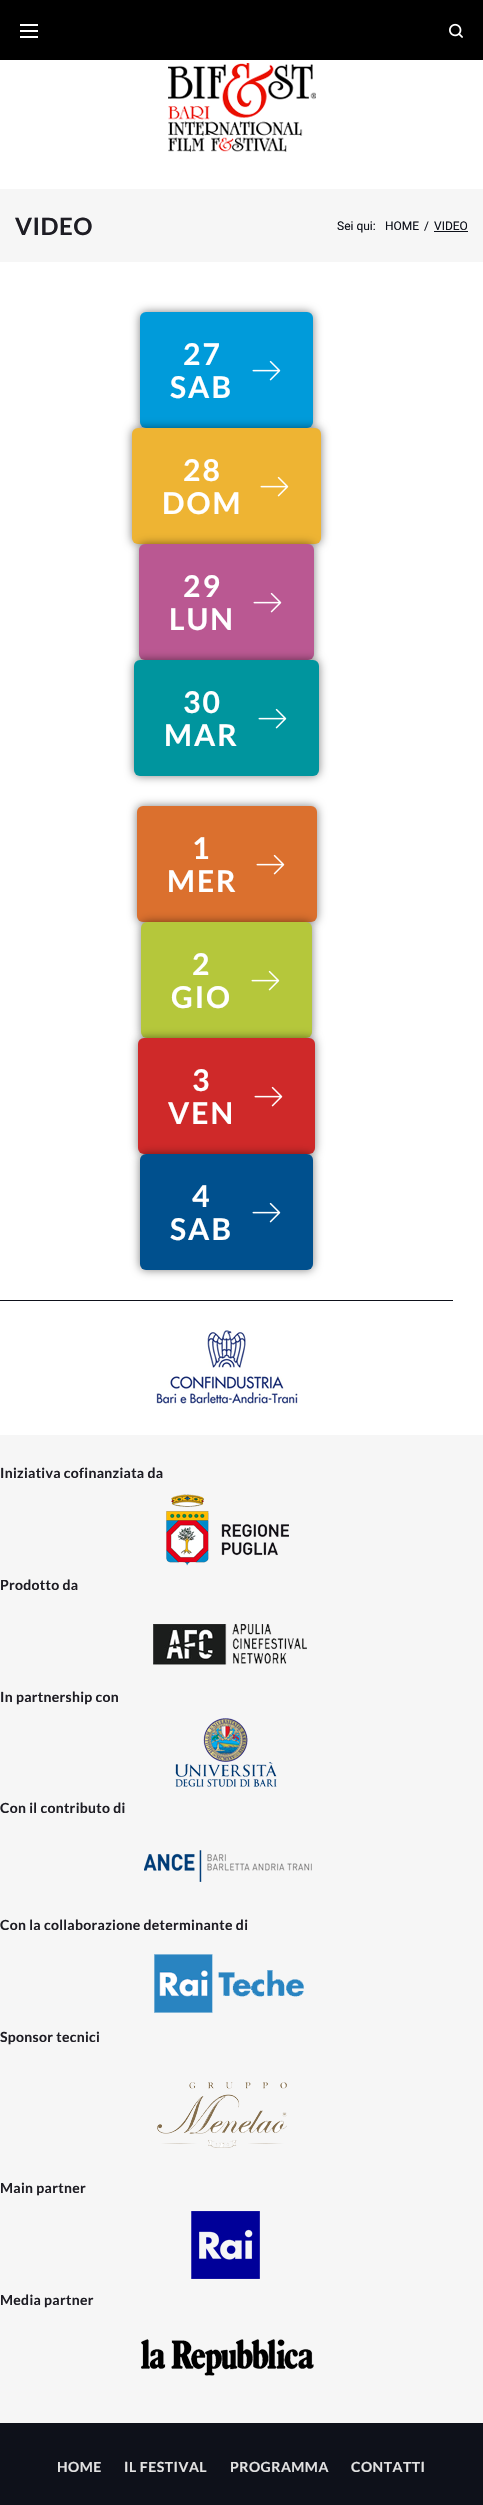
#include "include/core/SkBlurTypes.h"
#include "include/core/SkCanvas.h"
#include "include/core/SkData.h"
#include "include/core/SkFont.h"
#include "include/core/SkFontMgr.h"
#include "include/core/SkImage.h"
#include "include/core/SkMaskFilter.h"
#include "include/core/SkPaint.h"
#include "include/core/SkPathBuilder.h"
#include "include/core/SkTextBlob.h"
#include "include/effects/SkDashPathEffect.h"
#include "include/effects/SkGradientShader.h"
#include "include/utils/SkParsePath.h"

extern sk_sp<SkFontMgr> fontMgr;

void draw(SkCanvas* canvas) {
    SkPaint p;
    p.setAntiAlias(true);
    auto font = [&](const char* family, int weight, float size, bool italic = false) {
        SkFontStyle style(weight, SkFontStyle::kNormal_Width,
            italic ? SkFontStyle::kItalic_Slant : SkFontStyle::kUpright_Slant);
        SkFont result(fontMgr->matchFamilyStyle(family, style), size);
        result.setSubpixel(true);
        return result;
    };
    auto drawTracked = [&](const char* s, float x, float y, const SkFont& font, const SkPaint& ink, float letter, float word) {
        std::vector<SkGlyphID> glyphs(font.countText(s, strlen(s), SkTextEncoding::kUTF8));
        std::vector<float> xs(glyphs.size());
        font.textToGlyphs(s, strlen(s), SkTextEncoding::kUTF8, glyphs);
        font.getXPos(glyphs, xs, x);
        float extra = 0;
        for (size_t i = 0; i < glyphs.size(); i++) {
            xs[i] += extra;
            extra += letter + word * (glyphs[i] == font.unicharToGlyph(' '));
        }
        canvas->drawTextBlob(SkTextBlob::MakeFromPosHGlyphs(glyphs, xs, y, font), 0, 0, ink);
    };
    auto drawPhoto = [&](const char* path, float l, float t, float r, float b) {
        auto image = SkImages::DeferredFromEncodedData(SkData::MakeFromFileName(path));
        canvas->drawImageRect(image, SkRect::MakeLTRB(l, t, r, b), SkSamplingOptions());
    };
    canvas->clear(0xFFFFFFFF);
    {
        const struct { float l, t, r, b; SkColor color; } items[] = {
            {0, 0, 483, 60, 0xFF000000},
            {20, 30, 38, 32, 0xFFFFFFFF},
            {20, 24, 38, 26, 0xFFFFFFFF},
            {20, 36, 38, 38, 0xFFFFFFFF},
        };
        for (auto [l, t, r, b, color] : items) {
            p.setColor(color);
            canvas->drawRect(SkRect::MakeLTRB(l, t, r, b), p);
        }
    }
    drawPhoto("media/1.png", 449, 23, 463, 38);
    drawPhoto("media/2.png", 168, 63, 316, 152);
    p.setColor(0xFFF6F6F6);
    canvas->drawRect(SkRect::MakeLTRB(0, 189, 483, 262), p);
    auto font1 = font("Lato", 700, 24);
    p.setColor(0xFF1E1D24);
    drawTracked("VIDEO", 15, 235, font1, p, 0.5f, 0);
    auto font2 = font("Roboto", 400, 12);
    p.setColor(0xFF0E111A);
    {
        const struct { const char* s; float x, y; } items[] = {
            {"Sei qui:", 337, 230},
            {"HOME", 385, 230},
            {"/", 424, 230},
            {"VIDEO", 434, 230},
        };
        for (auto [s, x, y] : items) {
            canvas->drawString(s, x, y, font2, p);
        }
    }
    canvas->drawRect(SkRect::MakeLTRB(434, 231, 468, 232), p);
    p.setColor(0x80000000);
    p.setMaskFilter(SkMaskFilter::MakeBlur(kNormal_SkBlurStyle, 5));
    canvas->drawRoundRect(SkRect::MakeLTRB(140, 312, 313, 428), 6, 6, p);
    p.setMaskFilter(nullptr);
    p.setColor(0xFF009BDA);
    canvas->drawRoundRect(SkRect::MakeLTRB(140, 312, 313, 428), 6, 6, p);
    auto font3 = font("Lato", 700, 30);
    p.setColor(0xFFFFFFFF);
    drawTracked("27", 183, 365, font3, p, 2, 0);
    drawTracked("SAB", 170, 398, font3, p, 2, 0);
    drawPhoto("media/3.png", 252, 360, 281, 381);
    p.setColor(0x80000000);
    p.setMaskFilter(SkMaskFilter::MakeBlur(kNormal_SkBlurStyle, 5));
    canvas->drawRoundRect(SkRect::MakeLTRB(132, 428, 321, 544), 6, 6, p);
    p.setMaskFilter(nullptr);
    p.setColor(0xFFEEB433);
    canvas->drawRoundRect(SkRect::MakeLTRB(132, 428, 321, 544), 6, 6, p);
    p.setColor(0xFFFFFFFF);
    drawTracked("28", 183, 481, font3, p, 2, 0);
    drawTracked("DOM", 162, 514, font3, p, 2, 0);
    drawPhoto("media/4.png", 260, 476, 289, 497);
    p.setColor(0x80000000);
    p.setMaskFilter(SkMaskFilter::MakeBlur(kNormal_SkBlurStyle, 5));
    canvas->drawRoundRect(SkRect::MakeLTRB(139, 544, 314, 660), 6, 6, p);
    p.setMaskFilter(nullptr);
    p.setColor(0xFFBA5892);
    canvas->drawRoundRect(SkRect::MakeLTRB(139, 544, 314, 660), 6, 6, p);
    p.setColor(0xFFFFFFFF);
    drawTracked("29", 183, 597, font3, p, 2, 0);
    drawTracked("LUN", 169, 630, font3, p, 2, 0);
    drawPhoto("media/5.png", 253, 592, 282, 613);
    p.setColor(0x80000000);
    p.setMaskFilter(SkMaskFilter::MakeBlur(kNormal_SkBlurStyle, 5));
    canvas->drawRoundRect(SkRect::MakeLTRB(134, 660, 319, 776), 6, 6, p);
    p.setMaskFilter(nullptr);
    p.setColor(0xFF00959E);
    canvas->drawRoundRect(SkRect::MakeLTRB(134, 660, 319, 776), 6, 6, p);
    p.setColor(0xFFFFFFFF);
    drawTracked("30", 183, 713, font3, p, 2, 0);
    drawTracked("MAR", 164, 746, font3, p, 2, 0);
    drawPhoto("media/6.png", 258, 708, 287, 729);
    p.setColor(0x80000000);
    p.setMaskFilter(SkMaskFilter::MakeBlur(kNormal_SkBlurStyle, 5));
    canvas->drawRoundRect(SkRect::MakeLTRB(137, 806, 317, 922), 6, 6, p);
    p.setMaskFilter(nullptr);
    p.setColor(0xFFDB702E);
    canvas->drawRoundRect(SkRect::MakeLTRB(137, 806, 317, 922), 6, 6, p);
    p.setColor(0xFFFFFFFF);
    drawTracked("1", 192, 859, font3, p, 2, 0);
    drawTracked("MER", 167, 892, font3, p, 2, 0);
    drawPhoto("media/7.png", 256, 854, 285, 875);
    p.setColor(0x80000000);
    p.setMaskFilter(SkMaskFilter::MakeBlur(kNormal_SkBlurStyle, 5));
    canvas->drawRoundRect(SkRect::MakeLTRB(141, 922, 312, 1038), 6, 6, p);
    p.setMaskFilter(nullptr);
    p.setColor(0xFFB5C73B);
    canvas->drawRoundRect(SkRect::MakeLTRB(141, 922, 312, 1038), 6, 6, p);
    p.setColor(0xFFFFFFFF);
    drawTracked("2", 192, 975, font3, p, 2, 0);
    drawTracked("GIO", 171, 1008, font3, p, 2, 0);
    drawPhoto("media/8.png", 251, 970, 280, 991);
    p.setColor(0x80000000);
    p.setMaskFilter(SkMaskFilter::MakeBlur(kNormal_SkBlurStyle, 5));
    canvas->drawRoundRect(SkRect::MakeLTRB(138, 1038, 315, 1154), 6, 6, p);
    p.setMaskFilter(nullptr);
    p.setColor(0xFFCF2929);
    canvas->drawRoundRect(SkRect::MakeLTRB(138, 1038, 315, 1154), 6, 6, p);
    p.setColor(0xFFFFFFFF);
    drawTracked("3", 192, 1091, font3, p, 2, 0);
    drawTracked("VEN", 168, 1124, font3, p, 2, 0);
    drawPhoto("media/9.png", 254, 1086, 283, 1107);
    p.setColor(0x80000000);
    p.setMaskFilter(SkMaskFilter::MakeBlur(kNormal_SkBlurStyle, 5));
    canvas->drawRoundRect(SkRect::MakeLTRB(140, 1154, 313, 1270), 6, 6, p);
    p.setMaskFilter(nullptr);
    p.setColor(0xFF00508E);
    canvas->drawRoundRect(SkRect::MakeLTRB(140, 1154, 313, 1270), 6, 6, p);
    p.setColor(0xFFFFFFFF);
    drawTracked("4", 192, 1207, font3, p, 2, 0);
    drawTracked("SAB", 170, 1240, font3, p, 2, 0);
    drawPhoto("media/10.png", 252, 1202, 281, 1223);
    {
        const struct { float l, t, r, b; SkColor color; } items[] = {
            {0, 2423, 483, 2505, 0xFF0E111A},
            {0, 1435, 483, 2423, 0xFFF6F6F6},
            {0, 1300, 453, 1301, 0xFF0E111A},
        };
        for (auto [l, t, r, b, color] : items) {
            p.setColor(color);
            canvas->drawRect(SkRect::MakeLTRB(l, t, r, b), p);
        }
    }
    drawPhoto("media/11.png", 156, 1330, 298, 1406);
    auto font4 = font("Lato", 700, 14);
    p.setColor(0xFF1E1D24);
    drawTracked("Iniziativa cofinanziata da", 0, 1478, font4, p, 0.3f, 0);
    drawPhoto("media/12.png", 166, 1494, 289, 1566);
    drawTracked("Prodotto da", 0, 1590, font4, p, 0.3f, 0);
    drawPhoto("media/13.png", 153, 1624, 307, 1665);
    drawTracked("In partnership con", 0, 1702, font4, p, 0.3f, 0);
    drawPhoto("media/14.png", 175, 1718, 277, 1787);
    drawTracked("Con il contributo di", 0, 1813, font4, p, 0.3f, 0);
    drawPhoto("media/15.png", 144, 1850, 312, 1882);
    drawTracked("Con la collaborazione determinante di", 0, 1930, font4, p, 0.3f, 0);
    drawPhoto("media/16.png", 154, 1954, 304, 2013);
    drawTracked("Sponsor tecnici", 0, 2042, font4, p, 0.3f, 0);
    drawPhoto("media/17.png", 157, 2082, 287, 2148);
    drawTracked("Main partner", 0, 2193, font4, p, 0.3f, 0);
    drawPhoto("media/18.png", 191, 2211, 260, 2279);
    drawTracked("Media partner", 0, 2305, font4, p, 0.3f, 0);
    drawPhoto("media/19.png", 141, 2339, 314, 2376);
    p.setColor(0xFFE2E2E2);
    {
        const struct { const char* s; float x, y; } items[] = {
            {"HOME", 57, 2472},
            {"IL FESTIVAL", 124, 2472},
            {"PROGRAMMA", 230, 2472},
            {"CONTATTI", 351, 2472},
        };
        for (auto [s, x, y] : items) {
            drawTracked(s, x, y, font4, p, 0.5f, 0);
        }
    }
}
